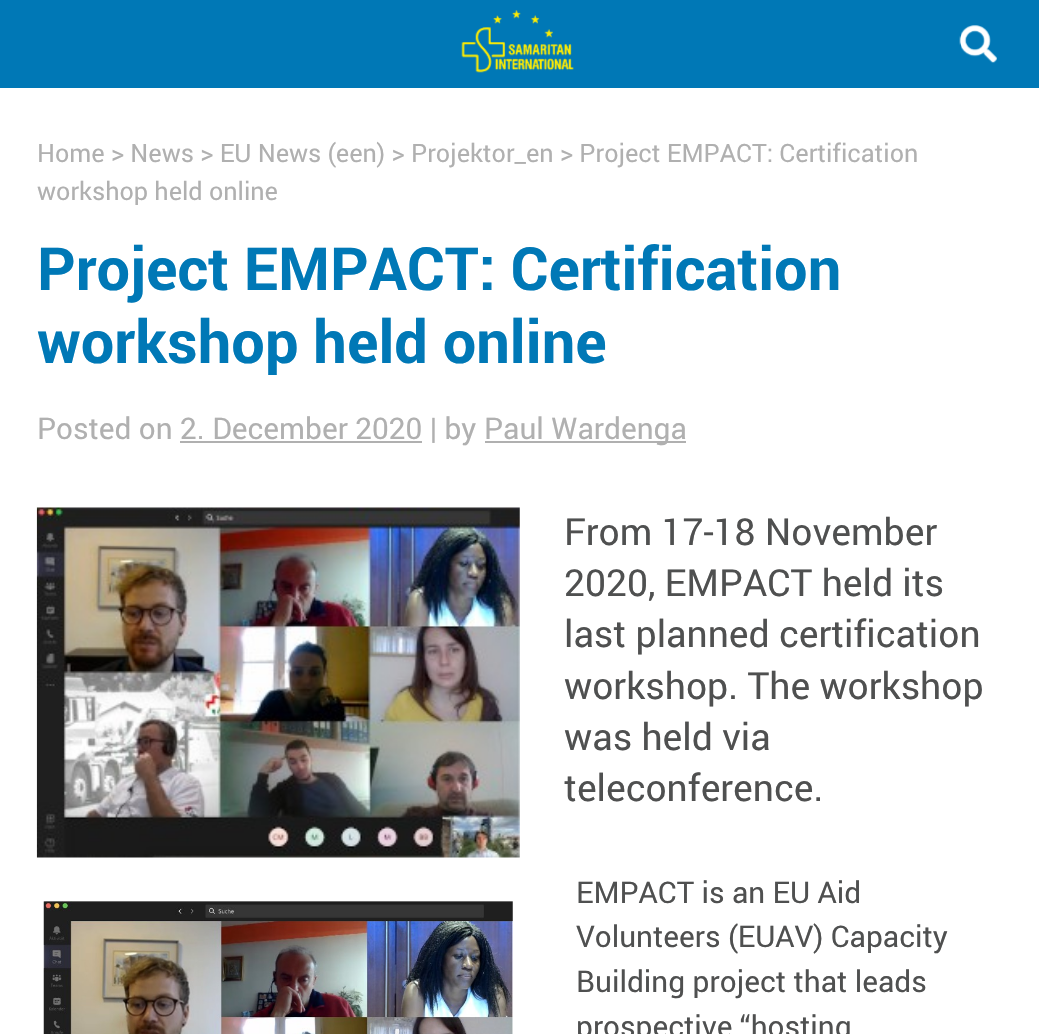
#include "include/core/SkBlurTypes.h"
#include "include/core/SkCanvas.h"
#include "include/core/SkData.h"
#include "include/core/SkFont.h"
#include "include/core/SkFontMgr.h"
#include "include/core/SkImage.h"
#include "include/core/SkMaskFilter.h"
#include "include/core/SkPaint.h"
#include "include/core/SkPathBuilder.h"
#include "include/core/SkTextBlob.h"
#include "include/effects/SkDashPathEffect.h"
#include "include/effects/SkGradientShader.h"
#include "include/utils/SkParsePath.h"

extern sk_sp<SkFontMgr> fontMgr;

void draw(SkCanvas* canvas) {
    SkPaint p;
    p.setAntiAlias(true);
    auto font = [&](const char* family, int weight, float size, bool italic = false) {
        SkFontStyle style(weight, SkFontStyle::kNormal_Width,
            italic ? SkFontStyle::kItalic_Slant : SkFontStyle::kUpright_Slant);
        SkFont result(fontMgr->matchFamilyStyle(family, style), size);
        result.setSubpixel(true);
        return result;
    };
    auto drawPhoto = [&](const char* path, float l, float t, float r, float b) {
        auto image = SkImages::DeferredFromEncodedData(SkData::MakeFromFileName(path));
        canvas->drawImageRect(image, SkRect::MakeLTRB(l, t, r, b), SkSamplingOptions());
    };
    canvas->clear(0xFFFFFFFF);
    p.setColor(0xFF0078B6);
    canvas->drawRect(SkRect::MakeLTRB(0, 0, 1039, 88), p);
    drawPhoto("media/1.png", 959, 25, 997, 63);
    drawPhoto("media/2.png", 461, 10, 574, 73);
    auto font1 = font("Roboto", 400, 25.2f);
    p.setColor(0xFFB0B0B0);
    canvas->drawString("Home > News > EU News (een) > Projektor_en > Project EMPACT: Certification", 37, 162, font1, p);
    canvas->drawString("workshop held online", 37, 200, font1, p);
    auto font2 = font("Roboto", 700, 59.5f);
    p.setColor(0xFF0078B6);
    canvas->drawString("Project EMPACT: Certification", 37, 290, font2, p);
    canvas->drawString("workshop held online", 37, 363, font2, p);
    auto font3 = font("Roboto", 400, 29.75f);
    p.setColor(0xFFB0B0B0);
    canvas->drawString("Posted on 2. December 2020 | by", 37, 439, font3, p);
    canvas->drawRect(SkRect::MakeLTRB(180, 441, 422, 443), p);
    canvas->drawRect(SkRect::MakeLTRB(485, 441, 686, 443), p);
    canvas->drawString("Paul Wardenga", 484, 439, font3, p);
    drawPhoto("media/3.png", 36, 507, 520, 858);
    auto font4 = font("Roboto", 400, 37.25f);
    p.setColor(0xFF4F5050);
    {
        const struct { const char* s; float x, y; } items[] = {
            {"From 17-18 November", 564, 545},
            {"2020, EMPACT held its", 564, 596},
            {"last planned certification", 564, 647},
            {"workshop. The workshop", 564, 699},
            {"was held via", 564, 750},
            {"teleconference.", 564, 801},
        };
        for (auto [s, x, y] : items) {
            canvas->drawString(s, x, y, font4, p);
        }
    }
    drawPhoto("media/4.png", 43, 901, 513, 1034);
    {
        const struct { const char* s; float x, y; } items[] = {
            {"EMPACT is an EU Aid", 576, 903},
            {"Volunteers (EUAV) Capacity", 576, 947},
            {"Building project that leads", 576, 992},
            {"prospective “hosting", 576, 1037},
        };
        for (auto [s, x, y] : items) {
            canvas->drawString(s, x, y, font3, p);
        }
    }
}
